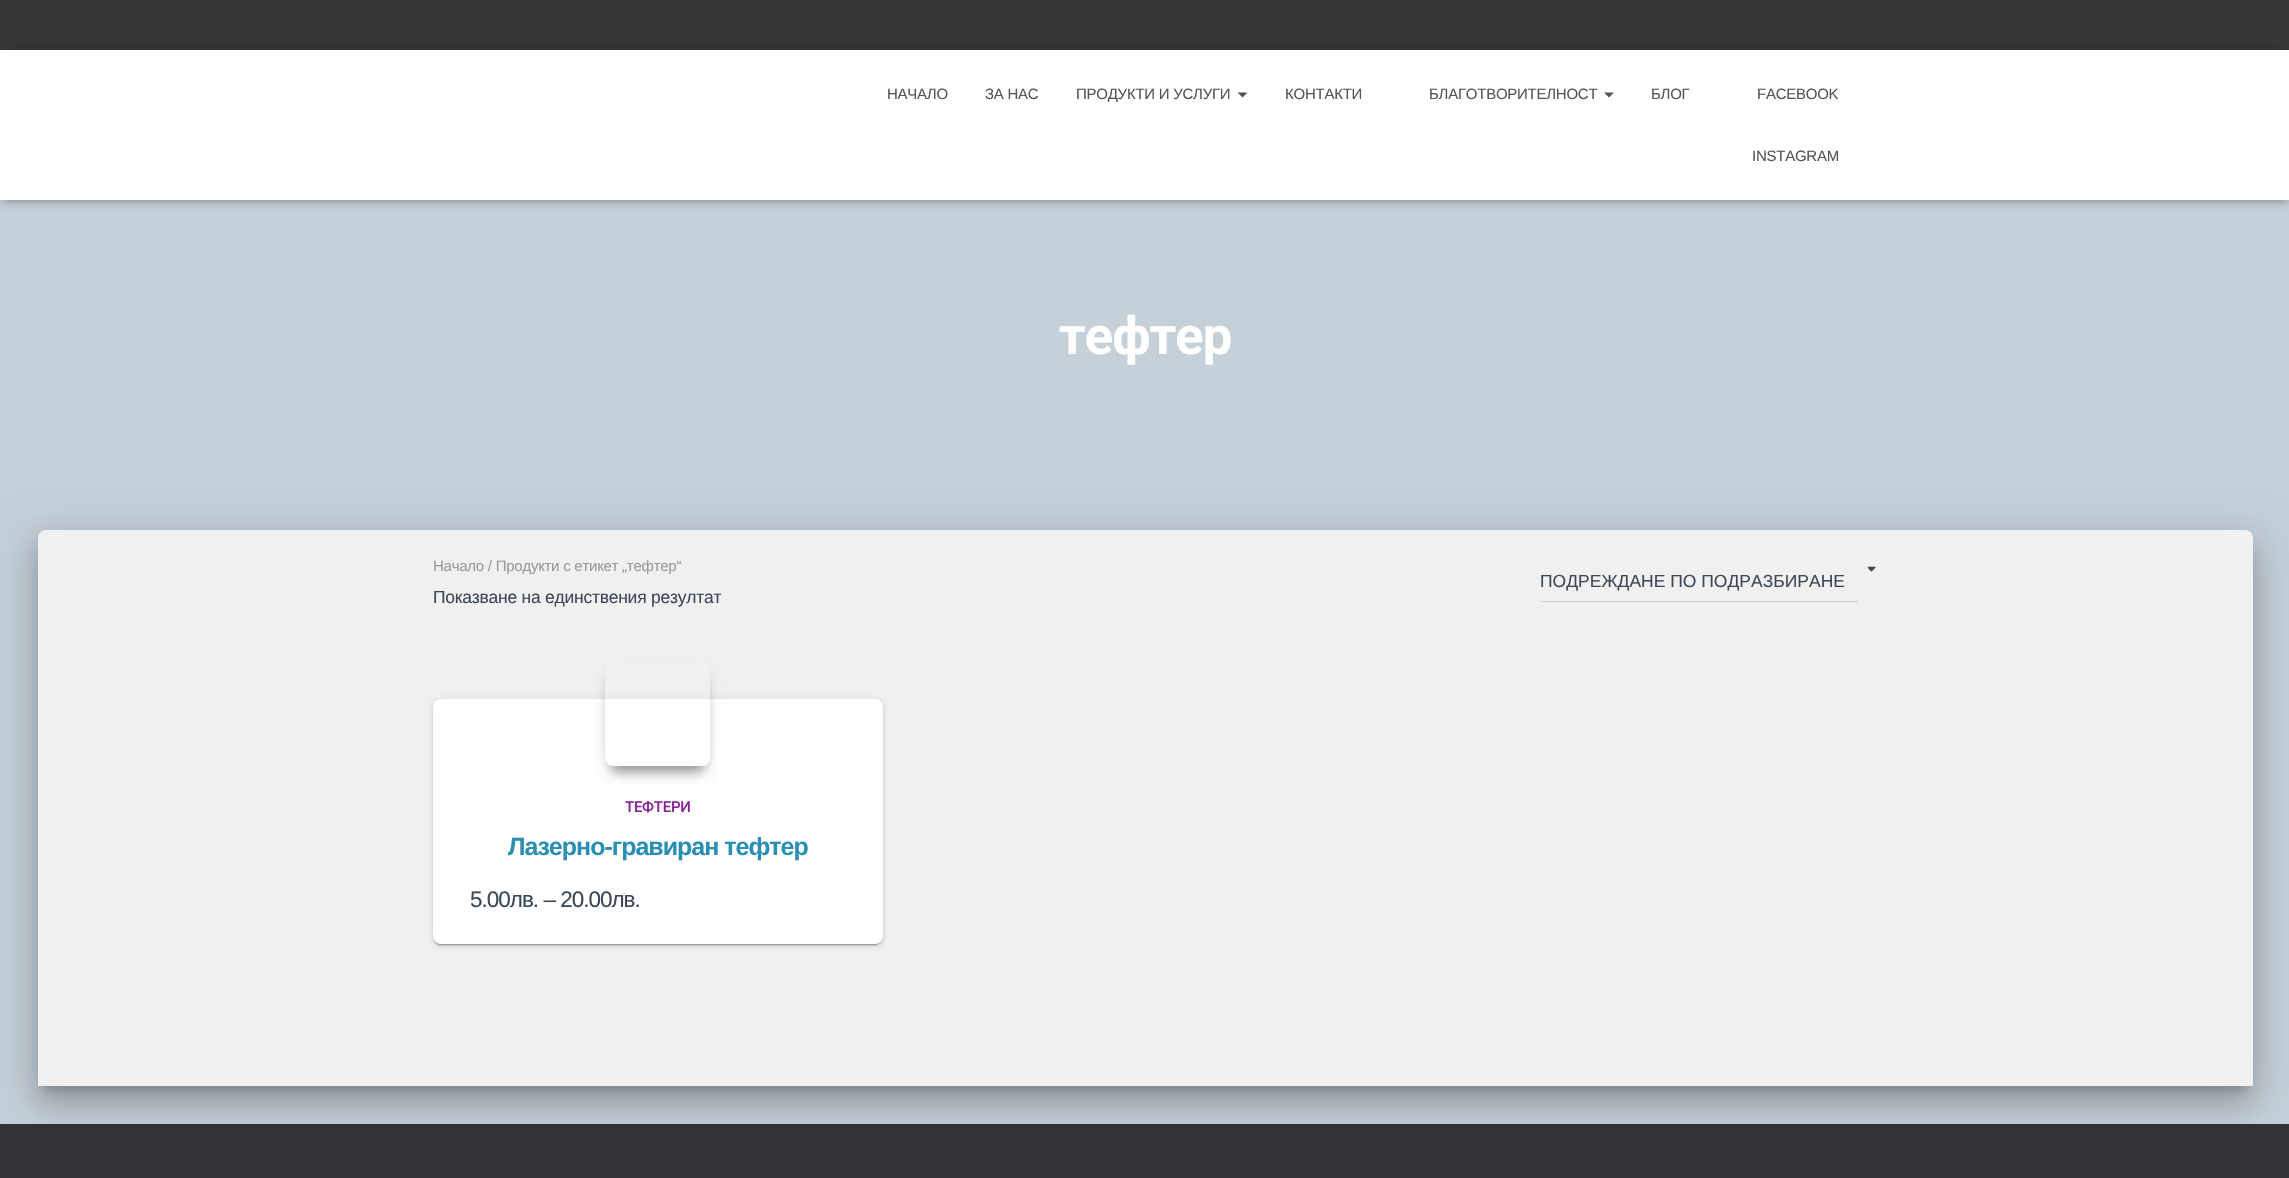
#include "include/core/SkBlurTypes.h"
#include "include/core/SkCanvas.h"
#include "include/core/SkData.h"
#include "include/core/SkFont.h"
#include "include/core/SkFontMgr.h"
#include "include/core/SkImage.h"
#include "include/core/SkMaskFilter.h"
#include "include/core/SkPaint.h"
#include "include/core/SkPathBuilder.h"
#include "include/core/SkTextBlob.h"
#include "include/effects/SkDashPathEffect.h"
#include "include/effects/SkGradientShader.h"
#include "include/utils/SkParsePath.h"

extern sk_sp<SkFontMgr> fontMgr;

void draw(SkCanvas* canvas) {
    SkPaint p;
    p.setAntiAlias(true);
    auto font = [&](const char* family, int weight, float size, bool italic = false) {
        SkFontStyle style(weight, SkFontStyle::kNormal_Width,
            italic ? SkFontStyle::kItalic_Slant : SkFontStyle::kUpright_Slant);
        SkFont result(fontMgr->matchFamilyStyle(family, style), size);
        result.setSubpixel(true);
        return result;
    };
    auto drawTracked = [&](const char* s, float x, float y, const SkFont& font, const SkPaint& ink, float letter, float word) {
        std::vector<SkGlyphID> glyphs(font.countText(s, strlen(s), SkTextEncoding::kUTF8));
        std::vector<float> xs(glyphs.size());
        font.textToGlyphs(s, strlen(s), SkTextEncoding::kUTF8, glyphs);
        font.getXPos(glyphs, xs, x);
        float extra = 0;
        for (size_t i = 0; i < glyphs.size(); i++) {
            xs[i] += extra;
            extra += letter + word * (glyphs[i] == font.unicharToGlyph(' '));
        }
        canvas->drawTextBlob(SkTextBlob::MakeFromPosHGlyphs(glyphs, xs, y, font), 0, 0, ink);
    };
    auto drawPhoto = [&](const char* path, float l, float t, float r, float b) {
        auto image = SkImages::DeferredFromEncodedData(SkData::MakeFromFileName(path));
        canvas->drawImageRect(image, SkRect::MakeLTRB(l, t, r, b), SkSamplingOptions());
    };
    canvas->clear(0xFFC5D0D9);
    p.setColor(0xFF363537);
    canvas->drawRect(SkRect::MakeLTRB(0, 0, 2289, 50), p);
    p.setColor(0x1A000000);
    p.setMaskFilter(SkMaskFilter::MakeBlur(kNormal_SkBlurStyle, 3));
    canvas->drawRect(SkRect::MakeLTRB(3, 58, 2288, 203), p);
    p.setMaskFilter(nullptr);
    p.setColor(0x1F000000);
    p.setMaskFilter(SkMaskFilter::MakeBlur(kNormal_SkBlurStyle, 6));
    canvas->drawRect(SkRect::MakeLTRB(0, 51, 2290, 201), p);
    p.setMaskFilter(nullptr);
    p.setColor(0x6B000000);
    p.setMaskFilter(SkMaskFilter::MakeBlur(kNormal_SkBlurStyle, 6));
    canvas->drawRect(SkRect::MakeLTRB(8, 59, 2283, 194), p);
    p.setMaskFilter(nullptr);
    p.setColor(0xFFFFFFFF);
    canvas->drawRect(SkRect::MakeLTRB(0, 50, 2289, 200), p);
    auto font1 = font("Liberation Sans", 400, 15);
    p.setColor(0xFF555555);
    {
        const struct { const char* s; float x, y; } items[] = {
            {"НАЧАЛО", 887, 99},
            {"ЗА НАС", 985, 99},
            {"ПРОДУКТИ И УСЛУГИ", 1076, 99},
        };
        for (auto [s, x, y] : items) {
            drawTracked(s, x, y, font1, p, -0.25f, 0);
        }
    }
    canvas->drawPath(SkPathBuilder().moveTo(1237.5f, 92.5f).lineTo(1247.5f, 92.5f).lineTo(1242.5f, 97.5f).close().detach(), p);
    drawTracked("КОНТАКТИ", 1285, 99, font1, p, -0.25f, 0);
    drawTracked("БЛАГОТВОРИТЕЛНОСТ", 1429, 99, font1, p, -0.25f, 0);
    canvas->drawPath(SkPathBuilder().moveTo(1604, 92.5f).lineTo(1614, 92.5f).lineTo(1609, 97.5f).close().detach(), p);
    {
        const struct { const char* s; float x, y; } items[] = {
            {"БЛОГ", 1651, 99},
            {"FACEBOOK", 1757, 99},
            {"INSTAGRAM", 1752, 161},
        };
        for (auto [s, x, y] : items) {
            drawTracked(s, x, y, font1, p, -0.25f, 0);
        }
    }
    auto font2 = font("Roboto", 700, 52.5f);
    p.setColor(0xFFFFFFFF);
    drawTracked("тефтер", 1059, 354, font2, p, -1, 0);
    p.setColor(0x33000000);
    p.setMaskFilter(SkMaskFilter::MakeBlur(kNormal_SkBlurStyle, 6));
    canvas->drawRoundRect(SkRect::MakeLTRB(44, 546, 2246, 1090), 1, 1, p);
    p.setMaskFilter(nullptr);
    p.setColor(0xFF323437);
    canvas->drawRect(SkRect::MakeLTRB(0, 1124, 2289, 1178), p);
    p.setColor(0x1F000000);
    p.setMaskFilter(SkMaskFilter::MakeBlur(kNormal_SkBlurStyle, 19));
    canvas->drawRoundRect(SkRect::MakeLTRB(31, 531, 2259, 1100), 14, 14, p);
    p.setMaskFilter(nullptr);
    p.setColor(0x24000000);
    p.setMaskFilter(SkMaskFilter::MakeBlur(kNormal_SkBlurStyle, 15));
    canvas->drawRoundRect(SkRect::MakeLTRB(35, 548, 2255, 1109), 10, 10, p);
    p.setMaskFilter(nullptr);
    p.setColor(0xFFF0F0F0);
    canvas->drawPath(SkPathBuilder().moveTo(46, 530).lineTo(2245, 530).cubicTo(2249.5f, 530, 2253, 533.5f, 2253, 538).lineTo(2253, 1086).lineTo(38, 1086).lineTo(38, 538).cubicTo(38, 533.5f, 41.5f, 530, 46, 530).close().detach(), p);
    p.setColor(0xFF999999);
    drawTracked("Начало / Продукти с етикет „тефтер“", 433, 571, font1, p, -0.25f, 0);
    auto font3 = font("Liberation Sans", 400, 17.5f);
    p.setColor(0xFF3C4858);
    drawTracked("Показване на единствения резултат", 433, 603, font3, p, -0.25f, 0);
    drawPhoto("media/1.png", 1867, 566, 1876, 572);
    p.setColor(0xFFD2D2D2);
    canvas->drawRect(SkRect::MakeLTRB(1540, 601, 1858, 602), p);
    p.setColor(0xFF3C4858);
    canvas->drawString("ПОДРЕЖДАНЕ ПО ПОДРАЗБИРАНЕ", 1540, 587, font3, p);
    p.setColor(0x1F000000);
    p.setMaskFilter(SkMaskFilter::MakeBlur(kNormal_SkBlurStyle, 3));
    canvas->drawRoundRect(SkRect::MakeLTRB(433, 700, 883, 945), 8, 8, p);
    p.setMaskFilter(nullptr);
    p.setColor(0x33000000);
    p.setMaskFilter(SkMaskFilter::MakeBlur(kNormal_SkBlurStyle, 0.5f));
    canvas->drawRoundRect(SkRect::MakeLTRB(435, 705, 880, 945), 5, 5, p);
    p.setMaskFilter(nullptr);
    p.setColor(0x24000000);
    p.setMaskFilter(SkMaskFilter::MakeBlur(kNormal_SkBlurStyle, 1));
    canvas->drawRoundRect(SkRect::MakeLTRB(433, 701, 883, 946), 8, 8, p);
    p.setMaskFilter(nullptr);
    p.setColor(0xFFFFFFFF);
    canvas->drawRoundRect(SkRect::MakeLTRB(433, 699, 883, 944), 8, 8, p);
    canvas->save();
    canvas->clipPath(SkPathBuilder(SkPathFillType::kEvenOdd).moveTo(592, 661).lineTo(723, 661).lineTo(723, 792).lineTo(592, 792).close().moveTo(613, 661).lineTo(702, 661).cubicTo(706.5f, 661, 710, 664.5f, 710, 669).lineTo(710, 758).cubicTo(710, 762.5f, 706.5f, 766, 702, 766).lineTo(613, 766).cubicTo(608.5f, 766, 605, 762.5f, 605, 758).lineTo(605, 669).cubicTo(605, 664.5f, 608.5f, 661, 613, 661).close().detach(), true);
    p.setColor(0x33000000);
    p.setMaskFilter(SkMaskFilter::MakeBlur(kNormal_SkBlurStyle, 6));
    canvas->drawRoundRect(SkRect::MakeLTRB(611, 680, 704, 773), 1, 1, p);
    p.setMaskFilter(nullptr);
    canvas->restore();
    canvas->save();
    canvas->clipPath(SkPathBuilder(SkPathFillType::kEvenOdd).moveTo(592, 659).lineTo(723, 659).lineTo(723, 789).lineTo(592, 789).close().moveTo(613, 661).lineTo(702, 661).cubicTo(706.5f, 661, 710, 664.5f, 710, 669).lineTo(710, 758).cubicTo(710, 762.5f, 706.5f, 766, 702, 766).lineTo(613, 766).cubicTo(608.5f, 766, 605, 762.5f, 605, 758).lineTo(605, 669).cubicTo(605, 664.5f, 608.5f, 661, 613, 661).close().detach(), true);
    p.setMaskFilter(SkMaskFilter::MakeBlur(kNormal_SkBlurStyle, 6));
    canvas->drawRoundRect(SkRect::MakeLTRB(611, 678, 704, 770), 1, 1, p);
    p.setMaskFilter(nullptr);
    canvas->restore();
    canvas->save();
    canvas->clipPath(SkPathBuilder(SkPathFillType::kEvenOdd).moveTo(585, 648).lineTo(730, 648).lineTo(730, 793).lineTo(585, 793).close().moveTo(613, 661).lineTo(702, 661).cubicTo(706.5f, 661, 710, 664.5f, 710, 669).lineTo(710, 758).cubicTo(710, 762.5f, 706.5f, 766, 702, 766).lineTo(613, 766).cubicTo(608.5f, 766, 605, 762.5f, 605, 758).lineTo(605, 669).cubicTo(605, 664.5f, 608.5f, 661, 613, 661).close().detach(), true);
    p.setColor(0x3D000000);
    p.setMaskFilter(SkMaskFilter::MakeBlur(kNormal_SkBlurStyle, 9.5f));
    canvas->drawRect(SkRect::MakeLTRB(615, 678, 700, 763), p);
    p.setMaskFilter(nullptr);
    canvas->restore();
    auto font4 = font("Roboto", 500, 15);
    p.setColor(0xFF89229B);
    drawTracked("ТЕФТЕРИ", 625, 812, font4, p, -0.25f, 0);
    auto font5 = font("Liberation Sans", 700, 25);
    p.setColor(0xFF2B8FB3);
    drawTracked("Лазерно-гравиран тефтер", 508, 855, font5, p, -1, 0);
    auto font6 = font("Liberation Sans", 400, 22.5f);
    p.setColor(0xFF3C4858);
    drawTracked("5.00лв. – 20.00лв.", 470, 907, font6, p, -1, 0);
}
